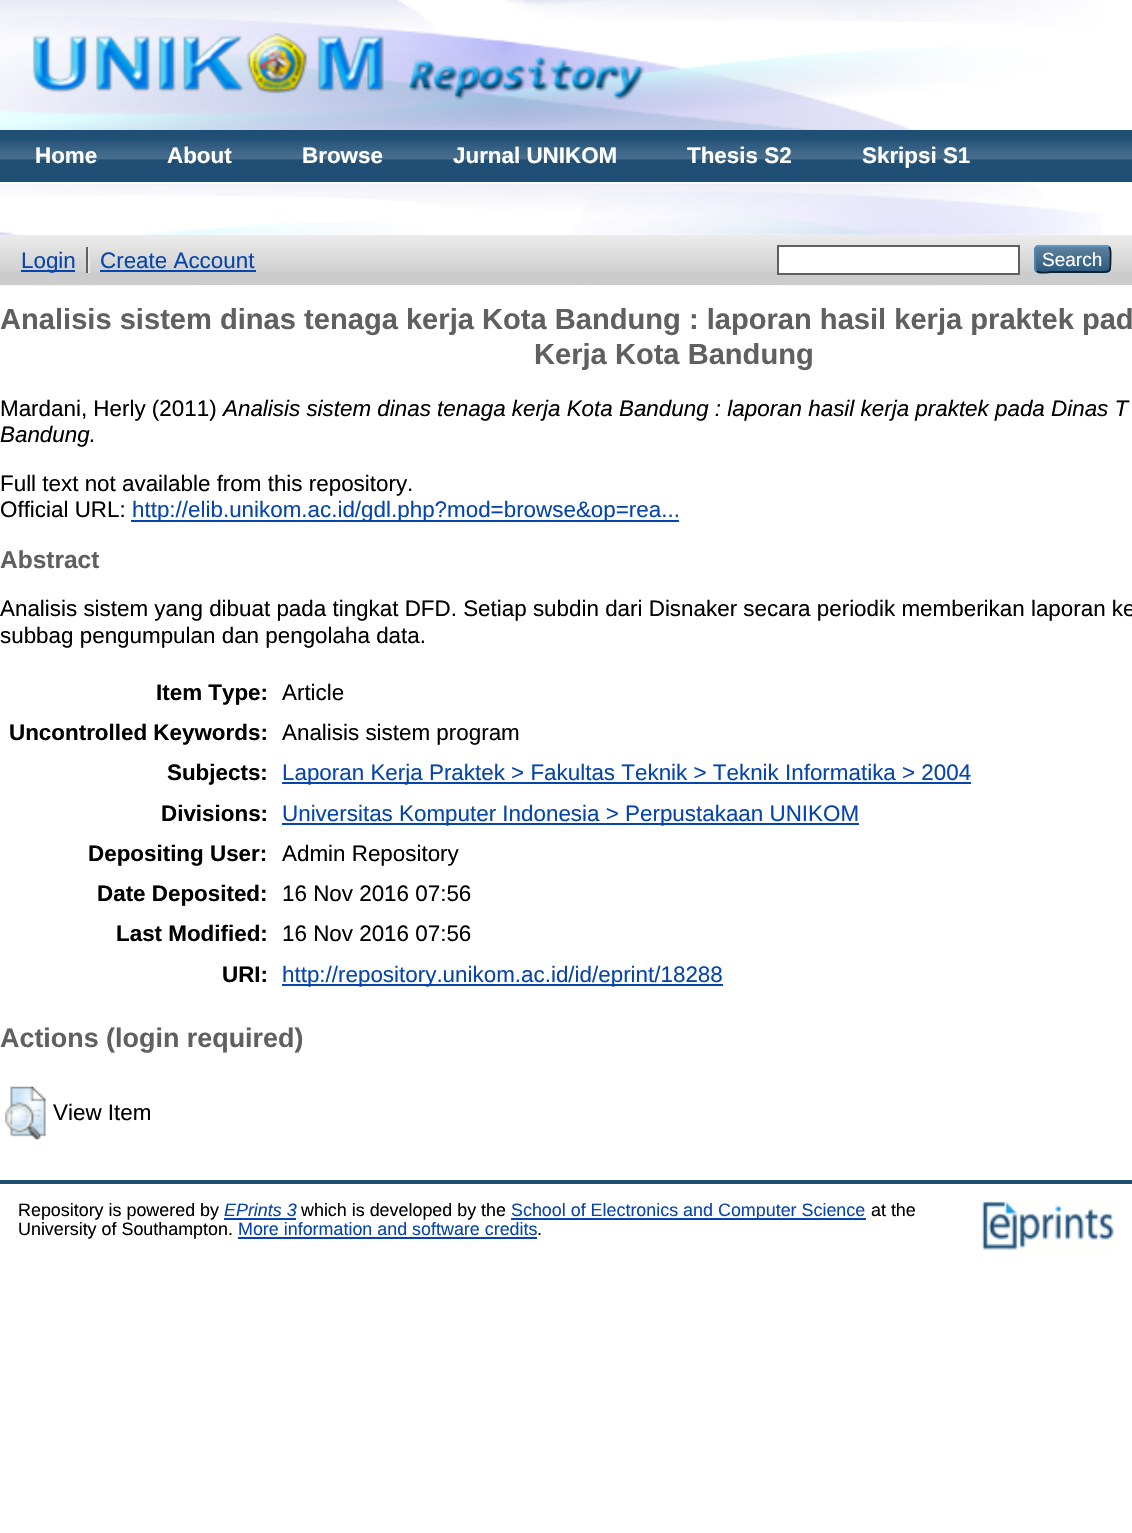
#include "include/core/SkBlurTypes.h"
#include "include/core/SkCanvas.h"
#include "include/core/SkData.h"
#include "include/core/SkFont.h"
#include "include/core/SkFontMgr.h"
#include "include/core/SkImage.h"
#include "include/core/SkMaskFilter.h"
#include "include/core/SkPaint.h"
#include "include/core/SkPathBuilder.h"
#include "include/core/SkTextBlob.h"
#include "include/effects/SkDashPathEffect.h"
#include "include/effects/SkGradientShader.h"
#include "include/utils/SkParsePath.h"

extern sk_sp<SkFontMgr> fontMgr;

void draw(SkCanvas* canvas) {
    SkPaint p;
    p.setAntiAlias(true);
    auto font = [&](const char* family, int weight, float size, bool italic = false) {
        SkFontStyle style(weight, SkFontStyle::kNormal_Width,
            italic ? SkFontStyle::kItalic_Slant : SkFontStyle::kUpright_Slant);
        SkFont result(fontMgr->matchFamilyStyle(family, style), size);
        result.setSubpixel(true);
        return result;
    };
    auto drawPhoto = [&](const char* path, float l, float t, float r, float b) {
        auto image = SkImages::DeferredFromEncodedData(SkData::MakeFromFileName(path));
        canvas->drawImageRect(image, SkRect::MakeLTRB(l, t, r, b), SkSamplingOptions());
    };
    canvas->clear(0xFFFFFFFF);
    drawPhoto("media/1.png", 0, 0, 1102, 286);
    drawPhoto("media/2.png", 32, 33, 645, 100);
    p.setColor(0xFF204F76);
    canvas->drawRect(SkRect::MakeLTRB(0, 130, 1132, 182), p);
    drawPhoto("media/3.png", 0, 140, 1132, 160);
    p.setColor(0xFFFFFFFF);
    canvas->drawRect(SkRect::MakeLTRB(0, 182, 1029, 184), p);
    auto font1 = font("Liberation Sans", 700, 22.4f);
    {
        const struct { const char* s; float x, y; } items[] = {
            {"Home", 35, 163},
            {"About", 167, 163},
            {"Browse", 302, 163},
            {"Jurnal UNIKOM", 453, 163},
            {"Thesis S2", 687, 163},
            {"Skripsi S1", 862, 163},
        };
        for (auto [s, x, y] : items) {
            canvas->drawString(s, x, y, font1, p);
        }
    }
    p.setColor(0xFFCCCCCC);
    canvas->drawRect(SkRect::MakeLTRB(0, 235, 1132, 285), p);
    drawPhoto("media/4.png", 0, 234, 1132, 272);
    p.setColor(0xFF0645AD);
    canvas->drawRect(SkRect::MakeLTRB(21, 270, 75, 272), p);
    auto font2 = font("Liberation Sans", 400, 22.4f);
    canvas->drawString("Login", 21, 268, font2, p);
    p.setColor(0xFF606060);
    canvas->drawRect(SkRect::MakeLTRB(86, 247, 88, 273), p);
    p.setColor(0xFF0645AD);
    canvas->drawString("Create Account", 100, 268, font2, p);
    p.setColor(0xFFE8E8E8);
    canvas->drawRect(SkRect::MakeLTRB(88, 247, 90, 273), p);
    p.setColor(0xFF0645AD);
    canvas->drawRect(SkRect::MakeLTRB(100, 270, 256, 272), p);
    p.setColor(0xFFFFFFFF);
    canvas->drawRect(SkRect::MakeLTRB(778, 246, 1019, 274), p);
    p.setStyle(SkPaint::kStroke_Style);
    p.setStrokeWidth(2);
    p.setColor(0xFF606060);
    canvas->drawRect(SkRect::MakeLTRB(778, 246, 1019, 274), p);
    p.setStyle(SkPaint::kFill_Style);
    p.setColor(0xFF1F4F76);
    canvas->drawRoundRect(SkRect::MakeLTRB(1034, 245, 1111, 273), 5, 5, p);
    drawPhoto("media/5.png", 1034, 245, 1111, 273);
    p.setStyle(SkPaint::kStroke_Style);
    p.setStrokeWidth(1.8f);
    p.setColor(0xFF5B97C7);
    canvas->drawPath(SkPathBuilder().moveTo(1036.5f, 247).lineTo(1039, 246).lineTo(1106.5f, 246).lineTo(1109, 247).detach(), p);
    p.setColor(0xFF0D2131);
    canvas->drawPath(SkPathBuilder().moveTo(1109, 247).cubicTo(1111.5f, 249.5f, 1110.5f, 256, 1110.5f, 259).cubicTo(1110.5f, 274, 1111, 272, 1095, 272).lineTo(1050.5f, 272).cubicTo(1050, 272, 1039.5f, 274, 1036.5f, 271).detach(), p);
    p.setColor(0xFF5287B3);
    canvas->drawPath(SkPathBuilder().moveTo(1036.5f, 271).cubicTo(1035.5f, 270, 1035, 269, 1035, 268).lineTo(1035, 250).cubicTo(1035, 249, 1035.5f, 248, 1036.5f, 247).detach(), p);
    auto font3 = font("Liberation Sans", 400, 19);
    p.setStyle(SkPaint::kFill_Style);
    p.setColor(0xFFFFFFFF);
    canvas->drawString("Search", 1042, 266, font3, p);
    auto font4 = font("Liberation Sans", 700, 29.1f);
    p.setColor(0xFF606060);
    canvas->drawString("Analisis sistem dinas tenaga kerja Kota Bandung : laporan hasil kerja praktek pad", 0, 329, font4, p);
    canvas->drawString("Kerja Kota Bandung", 534, 364, font4, p);
    p.setColor(0xFF000000);
    canvas->drawString("Mardani, Herly (2011)", 0, 416, font2, p);
    auto font5 = font("Liberation Sans", 400, 22.4f, true);
    canvas->drawString("Analisis sistem dinas tenaga kerja Kota Bandung : laporan hasil kerja praktek pada Dinas T", 223, 416, font5, p);
    canvas->drawString("Bandung.", 0, 442, font5, p);
    canvas->drawString("Full text not available from this repository.", 0, 491, font2, p);
    canvas->drawString("Official URL:", 0, 517, font2, p);
    p.setColor(0xFF0645AD);
    canvas->drawRect(SkRect::MakeLTRB(131, 520, 679, 522), p);
    canvas->drawString("http://elib.unikom.ac.id/gdl.php?mod=browse&op=rea...", 132, 517, font2, p);
    auto font6 = font("Liberation Sans", 700, 24.5f);
    p.setColor(0xFF606060);
    canvas->drawString("Abstract", 0, 568, font6, p);
    p.setColor(0xFF000000);
    canvas->drawString("Analisis sistem yang dibuat pada tingkat DFD. Setiap subdin dari Disnaker secara periodik memberikan laporan ke", 0, 616, font2, p);
    canvas->drawString("subbag pengumpulan dan pengolaha data.", 0, 643, font2, p);
    canvas->drawString("Item Type:", 156, 700, font1, p);
    canvas->drawString("Article", 282, 700, font2, p);
    canvas->drawString("Uncontrolled Keywords:", 9, 740, font1, p);
    canvas->drawString("Analisis sistem program", 282, 740, font2, p);
    canvas->drawString("Subjects:", 167, 780, font1, p);
    p.setColor(0xFF0645AD);
    canvas->drawRect(SkRect::MakeLTRB(282, 782, 971, 784), p);
    canvas->drawString("Laporan Kerja Praktek > Fakultas Teknik > Teknik Informatika > 2004", 282, 780, font2, p);
    p.setColor(0xFF000000);
    canvas->drawString("Divisions:", 161, 821, font1, p);
    p.setColor(0xFF0645AD);
    canvas->drawRect(SkRect::MakeLTRB(282, 823, 859, 825), p);
    canvas->drawString("Universitas Komputer Indonesia > Perpustakaan UNIKOM", 282, 821, font2, p);
    p.setColor(0xFF000000);
    canvas->drawString("Depositing User:", 88, 861, font1, p);
    canvas->drawString("Admin Repository", 282, 861, font2, p);
    canvas->drawString("Date Deposited:", 97, 901, font1, p);
    canvas->drawString("16 Nov 2016 07:56", 282, 901, font2, p);
    canvas->drawString("Last Modified:", 116, 941, font1, p);
    canvas->drawString("16 Nov 2016 07:56", 282, 941, font2, p);
    canvas->drawString("URI:", 222, 982, font1, p);
    p.setColor(0xFF0645AD);
    canvas->drawRect(SkRect::MakeLTRB(282, 984, 723, 986), p);
    canvas->drawString("http://repository.unikom.ac.id/id/eprint/18288", 282, 982, font2, p);
    auto font7 = font("Liberation Sans", 700, 26.9f);
    p.setColor(0xFF606060);
    canvas->drawString("Actions (login required)", 0, 1047, font7, p);
    drawPhoto("media/6.png", 5, 1086, 46, 1140);
    p.setColor(0xFF000000);
    canvas->drawString("View Item", 53, 1120, font2, p);
    p.setColor(0xFF204F76);
    canvas->drawRect(SkRect::MakeLTRB(0, 1180, 1132, 1184), p);
    auto font8 = font("Liberation Sans", 400, 17.9f);
    p.setColor(0xFF000000);
    canvas->drawString("Repository is powered by", 18, 1216, font8, p);
    auto font9 = font("Liberation Sans", 400, 17.9f, true);
    p.setColor(0xFF0645AD);
    canvas->drawString("EPrints 3", 224, 1216, font9, p);
    canvas->drawRect(SkRect::MakeLTRB(224, 1218, 296, 1220), p);
    p.setColor(0xFF000000);
    canvas->drawString("which is developed by the", 301, 1216, font8, p);
    p.setColor(0xFF0645AD);
    canvas->drawRect(SkRect::MakeLTRB(511, 1218, 866, 1220), p);
    canvas->drawString("School of Electronics and Computer Science", 511, 1216, font8, p);
    p.setColor(0xFF000000);
    canvas->drawString("at the", 871, 1216, font8, p);
    canvas->drawString("University of Southampton.", 18, 1235, font8, p);
    p.setColor(0xFF0645AD);
    canvas->drawString("More information and software credits", 238, 1235, font8, p);
    canvas->drawRect(SkRect::MakeLTRB(238, 1237, 537, 1239), p);
    p.setColor(0xFF000000);
    canvas->drawString(".", 537, 1235, font8, p);
    drawPhoto("media/7.png", 980, 1201, 1114, 1251);
}
